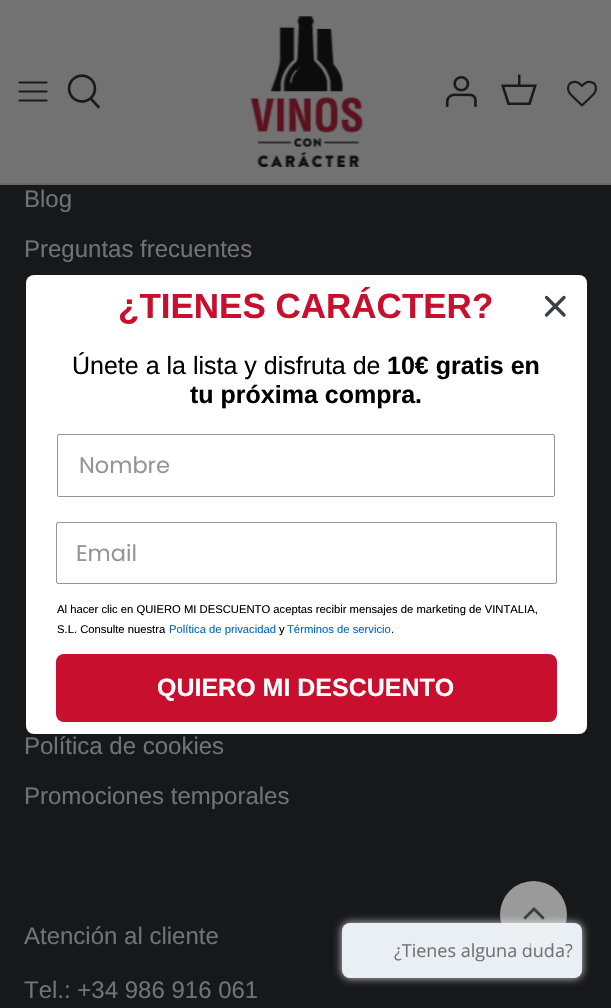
#include "include/core/SkBlurTypes.h"
#include "include/core/SkCanvas.h"
#include "include/core/SkData.h"
#include "include/core/SkFont.h"
#include "include/core/SkFontMgr.h"
#include "include/core/SkImage.h"
#include "include/core/SkMaskFilter.h"
#include "include/core/SkPaint.h"
#include "include/core/SkPathBuilder.h"
#include "include/core/SkTextBlob.h"
#include "include/effects/SkDashPathEffect.h"
#include "include/effects/SkGradientShader.h"
#include "include/utils/SkParsePath.h"

extern sk_sp<SkFontMgr> fontMgr;

void draw(SkCanvas* canvas) {
    SkPaint p;
    p.setAntiAlias(true);
    auto font = [&](const char* family, int weight, float size, bool italic = false) {
        SkFontStyle style(weight, SkFontStyle::kNormal_Width,
            italic ? SkFontStyle::kItalic_Slant : SkFontStyle::kUpright_Slant);
        SkFont result(fontMgr->matchFamilyStyle(family, style), size);
        result.setSubpixel(true);
        return result;
    };
    auto drawPhoto = [&](const char* path, float l, float t, float r, float b) {
        auto image = SkImages::DeferredFromEncodedData(SkData::MakeFromFileName(path));
        canvas->drawImageRect(image, SkRect::MakeLTRB(l, t, r, b), SkSamplingOptions());
    };
    canvas->clear(0xFF17181A);
    p.setColor(0xFF727272);
    canvas->drawRect(SkRect::MakeLTRB(0, 0, 611, 183), p);
    p.setColor(0xFF666666);
    canvas->drawRect(SkRect::MakeLTRB(0, 183, 611, 185), p);
    p.setStyle(SkPaint::kStroke_Style);
    p.setStrokeWidth(2.2f);
    p.setStrokeCap(SkPaint::kRound_Cap);
    p.setStrokeJoin(SkPaint::kRound_Join);
    p.setColor(0xFF191A1A);
    canvas->drawPath(SkPathBuilder().moveTo(19.5f, 91.5f).lineTo(46.5f, 91.5f).moveTo(19.5f, 82.5f).lineTo(46.5f, 82.5f).moveTo(19.5f, 100.5f).lineTo(46.5f, 100.5f).detach(), p);
    drawPhoto("media/1.png", 67, 74, 101, 109);
    drawPhoto("media/2.png", 250, 16, 363, 167);
    drawPhoto("media/3.png", 445, 76, 477, 107);
    p.setStyle(SkPaint::kFill_Style);
    canvas->drawPath(SkPathBuilder().moveTo(518, 84.5f).lineTo(518, 74.5f).lineTo(520.5f, 74.5f).lineTo(520.5f, 84.5f).lineTo(537, 84.5f).lineTo(530.5f, 105).lineTo(507.5f, 105).lineTo(501, 84.5f).close().moveTo(504.5f, 87).lineTo(509.5f, 102.5f).lineTo(528.5f, 102.5f).lineTo(533.5f, 87).close().detach(), p);
    drawPhoto("media/4.png", 567, 80, 597, 107);
    auto font1 = font("Liberation Sans", 400, 24);
    p.setColor(0xFF727272);
    {
        const struct { const char* s; float x, y; } items[] = {
            {"Blog", 24, 207},
            {"Preguntas frecuentes", 24, 257},
            {"Política de cookies", 24, 754},
            {"Promociones temporales", 24, 804},
            {"Atención al cliente", 24, 944},
            {"Tel.: +34 986 916 061", 24, 998},
        };
        for (auto [s, x, y] : items) {
            canvas->drawString(s, x, y, font1, p);
        }
    }
    p.setColor(0xFFFFFFFF);
    canvas->drawRoundRect(SkRect::MakeLTRB(26, 275, 587, 734), 8, 8, p);
    auto font2 = font("Liberation Sans", 700, 35);
    p.setColor(0xFFC8102E);
    canvas->drawString("¿TIENES CARÁCTER?", 118, 318, font2, p);
    auto font3 = font("Liberation Sans", 400, 25);
    p.setColor(0xFF000000);
    canvas->drawString("Únete a la lista y disfruta de", 72, 374, font3, p);
    auto font4 = font("Liberation Sans", 700, 25);
    canvas->drawString("10€ gratis en", 387, 374, font4, p);
    canvas->drawString("tu próxima compra.", 190, 403, font4, p);
    p.setStyle(SkPaint::kStroke_Style);
    p.setStrokeWidth(1);
    p.setStrokeCap(SkPaint::kButt_Cap);
    p.setStrokeJoin(SkPaint::kMiter_Join);
    p.setColor(0xFF949596);
    canvas->drawRoundRect(SkRect::MakeLTRB(57.5f, 434.5f, 554.5f, 496.5f), 1.5f, 1.5f, p);
    auto font5 = font("Poppins", 400, 22.5f);
    p.setStyle(SkPaint::kFill_Style);
    canvas->drawString("Nombre", 79, 473, font5, p);
    p.setStyle(SkPaint::kStroke_Style);
    canvas->drawRoundRect(SkRect::MakeLTRB(56.5f, 522.5f, 556.5f, 583.5f), 1.5f, 1.5f, p);
    p.setStyle(SkPaint::kFill_Style);
    canvas->drawString("Email", 76, 561, font5, p);
    auto font6 = font("Liberation Sans", 400, 11.25f);
    p.setColor(0xFF000000);
    canvas->drawString("Al hacer clic en QUIERO MI DESCUENTO aceptas recibir mensajes de marketing de VINTALIA,", 57, 613, font6, p);
    canvas->drawString("S.L. Consulte nuestra", 57, 633, font6, p);
    p.setColor(0xFF0066CC);
    canvas->drawString("Política de privacidad", 169, 633, font6, p);
    p.setColor(0xFF000000);
    canvas->drawString("y", 279, 633, font6, p);
    p.setColor(0xFF0066CC);
    canvas->drawString("Términos de servicio", 287, 633, font6, p);
    p.setColor(0xFF000000);
    canvas->drawString(".", 391, 633, font6, p);
    p.setColor(0xFFC8102E);
    canvas->drawRoundRect(SkRect::MakeLTRB(60, 658, 553, 718), 4, 4, p);
    p.setStyle(SkPaint::kStroke_Style);
    p.setStrokeWidth(8);
    canvas->drawRoundRect(SkRect::MakeLTRB(60, 658, 553, 718), 4, 4, p);
    p.setStyle(SkPaint::kFill_Style);
    p.setColor(0xFFFFFFFF);
    canvas->drawString("QUIERO MI DESCUENTO", 157, 696, font4, p);
    p.setStyle(SkPaint::kStroke_Style);
    p.setStrokeWidth(3.3f);
    p.setStrokeCap(SkPaint::kRound_Cap);
    p.setStrokeJoin(SkPaint::kRound_Join);
    p.setColor(0xFF373F47);
    canvas->drawPath(SkPathBuilder().moveTo(546.5f, 297.5f).lineTo(564, 315).moveTo(546.5f, 315).lineTo(564, 297.5f).close().detach(), p);
    p.setStyle(SkPaint::kFill_Style);
    p.setColor(0xFFD3D3D3);
    p.setMaskFilter(SkMaskFilter::MakeBlur(kNormal_SkBlurStyle, 4));
    canvas->drawRoundRect(SkRect::MakeLTRB(342, 923, 582, 978), 8, 8, p);
    p.setMaskFilter(nullptr);
    p.setColor(0xFFE9EFF5);
    canvas->drawRoundRect(SkRect::MakeLTRB(342, 923, 582, 978), 8, 8, p);
    auto font7 = font("Open Sans", 400, 18);
    p.setColor(0xFF727272);
    canvas->drawString("¿Tienes alguna duda?", 394, 957, font7, p);
    p.setColor(0x99F0F0F0);
    canvas->drawCircle(533.5f, 914.5f, 33.5f, p);
    drawPhoto("media/5.png", 523, 907, 545, 920);
}
